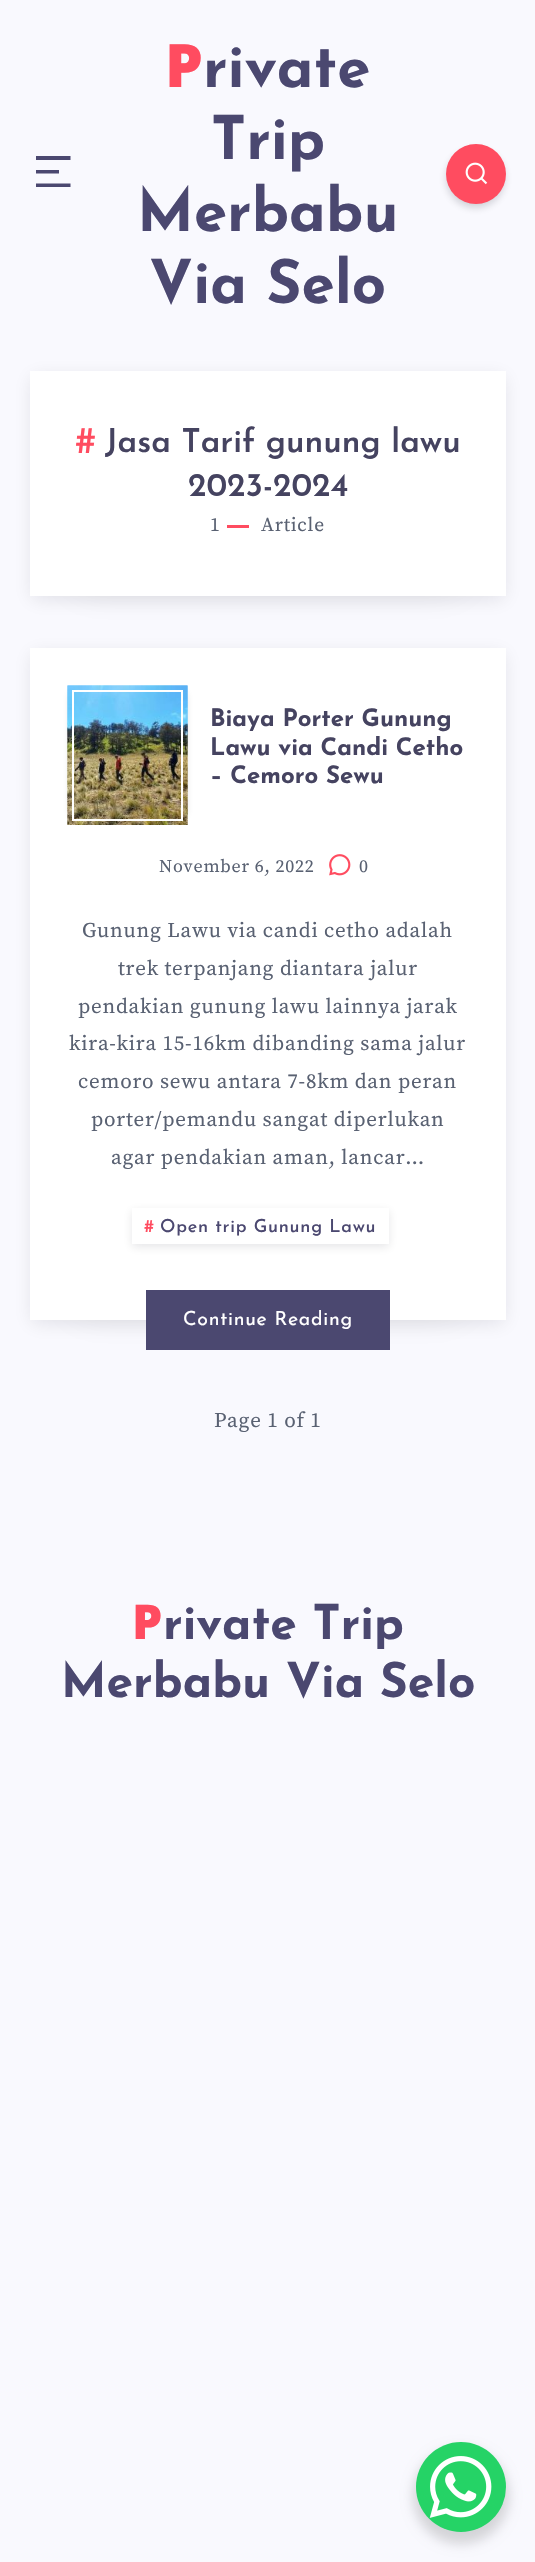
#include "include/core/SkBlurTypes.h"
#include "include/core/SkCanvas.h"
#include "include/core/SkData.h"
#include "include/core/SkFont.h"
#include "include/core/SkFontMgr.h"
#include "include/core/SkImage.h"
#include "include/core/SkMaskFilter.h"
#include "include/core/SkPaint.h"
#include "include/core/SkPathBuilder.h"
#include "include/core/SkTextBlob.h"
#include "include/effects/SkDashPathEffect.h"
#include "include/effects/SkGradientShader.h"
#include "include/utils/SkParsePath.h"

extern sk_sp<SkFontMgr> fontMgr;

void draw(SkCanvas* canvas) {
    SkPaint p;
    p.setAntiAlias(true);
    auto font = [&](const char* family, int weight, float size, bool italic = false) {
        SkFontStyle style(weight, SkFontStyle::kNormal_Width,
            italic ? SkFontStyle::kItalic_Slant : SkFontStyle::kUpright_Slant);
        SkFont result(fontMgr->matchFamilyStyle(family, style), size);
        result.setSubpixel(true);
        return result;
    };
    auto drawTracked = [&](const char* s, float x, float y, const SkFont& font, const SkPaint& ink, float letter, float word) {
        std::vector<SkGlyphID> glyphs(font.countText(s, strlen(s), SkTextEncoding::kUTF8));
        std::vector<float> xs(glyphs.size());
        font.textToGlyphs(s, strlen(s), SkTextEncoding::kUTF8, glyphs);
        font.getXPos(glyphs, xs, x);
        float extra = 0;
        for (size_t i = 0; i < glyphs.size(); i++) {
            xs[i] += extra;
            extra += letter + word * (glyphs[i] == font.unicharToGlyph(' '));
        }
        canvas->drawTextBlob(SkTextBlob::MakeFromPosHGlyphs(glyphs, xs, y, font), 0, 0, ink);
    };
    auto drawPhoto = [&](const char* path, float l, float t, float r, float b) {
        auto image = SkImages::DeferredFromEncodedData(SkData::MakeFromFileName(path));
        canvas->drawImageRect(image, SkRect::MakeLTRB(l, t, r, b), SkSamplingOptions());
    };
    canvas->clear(0xFFF9F9FE);
    p.setColor(0xFF4B4870);
    canvas->drawPath(SkPathBuilder().moveTo(36, 156).lineTo(70.5f, 156).lineTo(70.5f, 160).lineTo(36, 160).close().moveTo(36, 170).lineTo(59, 170).lineTo(59, 173.5f).lineTo(36, 173.5f).close().moveTo(36, 183.5f).lineTo(70.5f, 183.5f).lineTo(70.5f, 187).lineTo(36, 187).close().detach(), p);
    auto font1 = font("Noto Sans", 900, 60);
    p.setColor(0xFFFF4C60);
    canvas->drawString("P", 165, 87, font1, p);
    auto font2 = font("Josefin Sans", 700, 60);
    p.setColor(0xFF4B4870);
    {
        const struct { const char* s; float x, y; } items[] = {
            {"rivate", 203, 87},
            {"Trip", 211, 159},
            {"Merbabu", 137, 231},
            {"Via Selo", 149, 303},
        };
        for (auto [s, x, y] : items) {
            canvas->drawString(s, x, y, font2, p);
        }
    }
    p.setColor(0x33070A19);
    p.setMaskFilter(SkMaskFilter::MakeBlur(kNormal_SkBlurStyle, 4));
    canvas->drawRoundRect(SkRect::MakeLTRB(447, 150, 504, 207), 28.5f, 28.5f, p);
    p.setMaskFilter(nullptr);
    p.setColor(0xFFFF4C60);
    canvas->drawCircle(476, 174, 30, p);
    drawPhoto("media/1.png", 465, 162, 488, 185);
    p.setColor(0x1A070A19);
    p.setMaskFilter(SkMaskFilter::MakeBlur(kNormal_SkBlurStyle, 20));
    canvas->drawRect(SkRect::MakeLTRB(75, 449, 461, 584), p);
    p.setMaskFilter(nullptr);
    p.setMaskFilter(SkMaskFilter::MakeBlur(kNormal_SkBlurStyle, 9));
    canvas->drawRect(SkRect::MakeLTRB(32, 377, 504, 599), p);
    p.setMaskFilter(nullptr);
    p.setColor(0xFFFFFFFF);
    canvas->drawRect(SkRect::MakeLTRB(30, 371, 506, 596), p);
    auto font3 = font("Josefin Sans", 400, 38);
    p.setColor(0xFFFF4C60);
    canvas->drawString("#", 75, 453, font3, p);
    auto font4 = font("Josefin Sans", 600, 33);
    p.setColor(0xFF454360);
    canvas->drawString("Jasa Tarif gunung lawu", 105, 452, font4, p);
    canvas->drawString("2023-2024", 188, 496, font4, p);
    auto font5 = font("Source Serif Pro", 400, 19.5f);
    p.setColor(0xFF596172);
    drawTracked("1", 210, 531, font5, p, 0.75f, 0);
    p.setColor(0xFFFF4C60);
    canvas->drawRect(SkRect::MakeLTRB(227, 525, 249, 528), p);
    p.setColor(0xFF596172);
    drawTracked("Article", 261, 531, font5, p, 0.75f, 0);
    p.setColor(0x1A070A19);
    p.setMaskFilter(SkMaskFilter::MakeBlur(kNormal_SkBlurStyle, 20));
    canvas->drawRect(SkRect::MakeLTRB(75, 726, 461, 1308), p);
    p.setMaskFilter(nullptr);
    p.setMaskFilter(SkMaskFilter::MakeBlur(kNormal_SkBlurStyle, 9));
    canvas->drawRect(SkRect::MakeLTRB(32, 654, 504, 1323), p);
    p.setMaskFilter(nullptr);
    p.setColor(0xFFFFFFFF);
    canvas->drawRect(SkRect::MakeLTRB(30, 648, 506, 1320), p);
    p.setColor(0x33070A19);
    p.setMaskFilter(SkMaskFilter::MakeBlur(kNormal_SkBlurStyle, 4));
    canvas->drawRect(SkRect::MakeLTRB(71, 693, 185, 815), p);
    p.setMaskFilter(nullptr);
    drawPhoto("media/2.png", 67, 685, 188, 825);
    drawPhoto("media/3.png", 67, 685, 188, 825);
    p.setStyle(SkPaint::kStroke_Style);
    p.setStrokeWidth(2);
    p.setColor(0xFFFFFFFF);
    canvas->drawRect(SkRect::MakeLTRB(73, 691, 182, 820), p);
    auto font6 = font("Josefin Sans", 700, 24);
    p.setStyle(SkPaint::kFill_Style);
    p.setColor(0xFF454360);
    {
        const struct { const char* s; float x, y; } items[] = {
            {"Biaya Porter Gunung", 210, 726},
            {"Lawu via Candi Cetho", 210, 755},
            {"– Cemoro Sewu", 210, 783},
        };
        for (auto [s, x, y] : items) {
            canvas->drawString(s, x, y, font6, p);
        }
    }
    auto font7 = font("Source Serif Pro", 400, 18);
    p.setColor(0xFF596172);
    drawTracked("November 6, 2022", 159, 872, font7, p, 0.75f, 0);
    drawPhoto("media/4.png", 329, 854, 351, 876);
    drawTracked("0", 359, 872, font7, p, 0.75f, 0);
    auto font8 = font("Source Serif Pro", 400, 21);
    {
        const struct { const char* s; float x, y; } items[] = {
            {"Gunung Lawu via candi cetho adalah", 82, 937},
            {"trek terpanjang diantara jalur", 118, 975},
            {"pendakian gunung lawu lainnya jarak", 78, 1013},
            {"kira-kira 15-16km dibanding sama jalur", 69, 1050},
            {"cemoro sewu antara 7-8km dan peran", 78, 1088},
            {"porter/pemandu sangat diperlukan", 91, 1126},
            {"agar pendakian aman, lancar…", 111, 1164},
        };
        for (auto [s, x, y] : items) {
            drawTracked(s, x, y, font8, p, 0.75f, 0);
        }
    }
    p.setColor(0x1A070A19);
    p.setMaskFilter(SkMaskFilter::MakeBlur(kNormal_SkBlurStyle, 4.5f));
    canvas->drawRect(SkRect::MakeLTRB(132, 1211, 389, 1247), p);
    p.setMaskFilter(nullptr);
    p.setColor(0xFFFFFFFF);
    canvas->drawRect(SkRect::MakeLTRB(132, 1208, 389, 1244), p);
    auto font9 = font("Josefin Sans", 500, 18);
    p.setColor(0xFFFF4C60);
    drawTracked("#", 144, 1232, font9, p, 0.75f, 0);
    p.setColor(0xFF4B4870);
    drawTracked("Open trip Gunung Lawu", 160, 1232, font9, p, 0.75f, 0);
    canvas->drawRect(SkRect::MakeLTRB(146, 1290, 390, 1350), p);
    auto font10 = font("Josefin Sans", 400, 19.5f);
    p.setColor(0xFFFFFFFF);
    drawTracked("Continue Reading", 183, 1325, font10, p, 0.75f, 0);
    p.setColor(0xFF596172);
    drawTracked("Page 1 of 1", 214, 1427, font8, p, 0.75f, 0);
    auto font11 = font("Noto Sans", 900, 48);
    p.setColor(0xFFFF4C60);
    canvas->drawString("P", 132, 1639, font11, p);
    auto font12 = font("Josefin Sans", 700, 48);
    p.setColor(0xFF4B4870);
    canvas->drawString("rivate Trip", 163, 1639, font12, p);
    canvas->drawString("Merbabu Via Selo", 61, 1697, font12, p);
    p.setColor(0x26000000);
    p.setMaskFilter(SkMaskFilter::MakeBlur(kNormal_SkBlurStyle, 6));
    canvas->drawRoundRect(SkRect::MakeLTRB(413, 2448, 509, 2544), 48, 48, p);
    p.setMaskFilter(nullptr);
    p.setColor(0xFF25D366);
    canvas->drawCircle(461, 2487, 45, p);
    drawPhoto("media/5.png", 429, 2456, 492, 2518);
}
